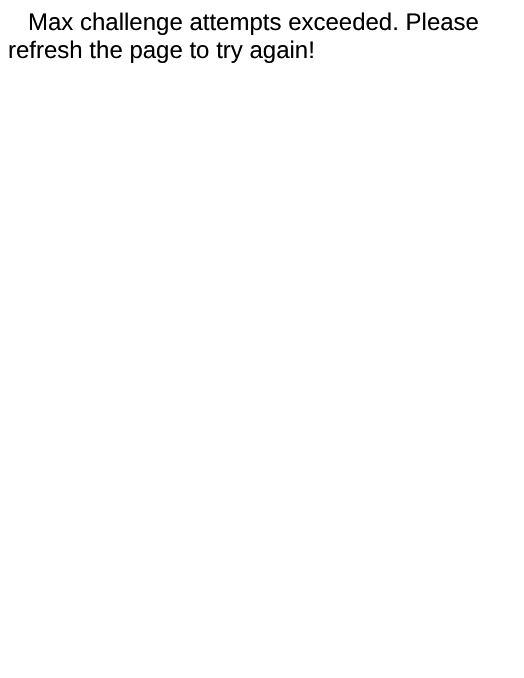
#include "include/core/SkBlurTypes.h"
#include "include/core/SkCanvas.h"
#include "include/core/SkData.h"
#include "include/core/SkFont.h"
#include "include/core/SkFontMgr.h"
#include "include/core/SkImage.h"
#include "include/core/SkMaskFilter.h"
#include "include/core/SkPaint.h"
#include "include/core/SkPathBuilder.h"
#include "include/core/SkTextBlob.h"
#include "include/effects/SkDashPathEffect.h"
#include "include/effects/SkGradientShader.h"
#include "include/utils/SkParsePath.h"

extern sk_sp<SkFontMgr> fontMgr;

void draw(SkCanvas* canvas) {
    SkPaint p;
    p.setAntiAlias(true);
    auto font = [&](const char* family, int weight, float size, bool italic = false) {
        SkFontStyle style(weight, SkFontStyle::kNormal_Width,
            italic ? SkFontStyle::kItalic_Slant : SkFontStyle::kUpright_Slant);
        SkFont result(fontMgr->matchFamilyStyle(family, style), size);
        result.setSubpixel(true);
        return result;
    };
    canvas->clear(0xFFFFFFFF);
    auto font1 = font("Liberation Sans", 400, 24);
    p.setColor(0xFF000000);
    canvas->drawString("Max challenge attempts exceeded. Please", 28, 30, font1, p);
    canvas->drawString("refresh the page to try again!", 8, 58, font1, p);
}
